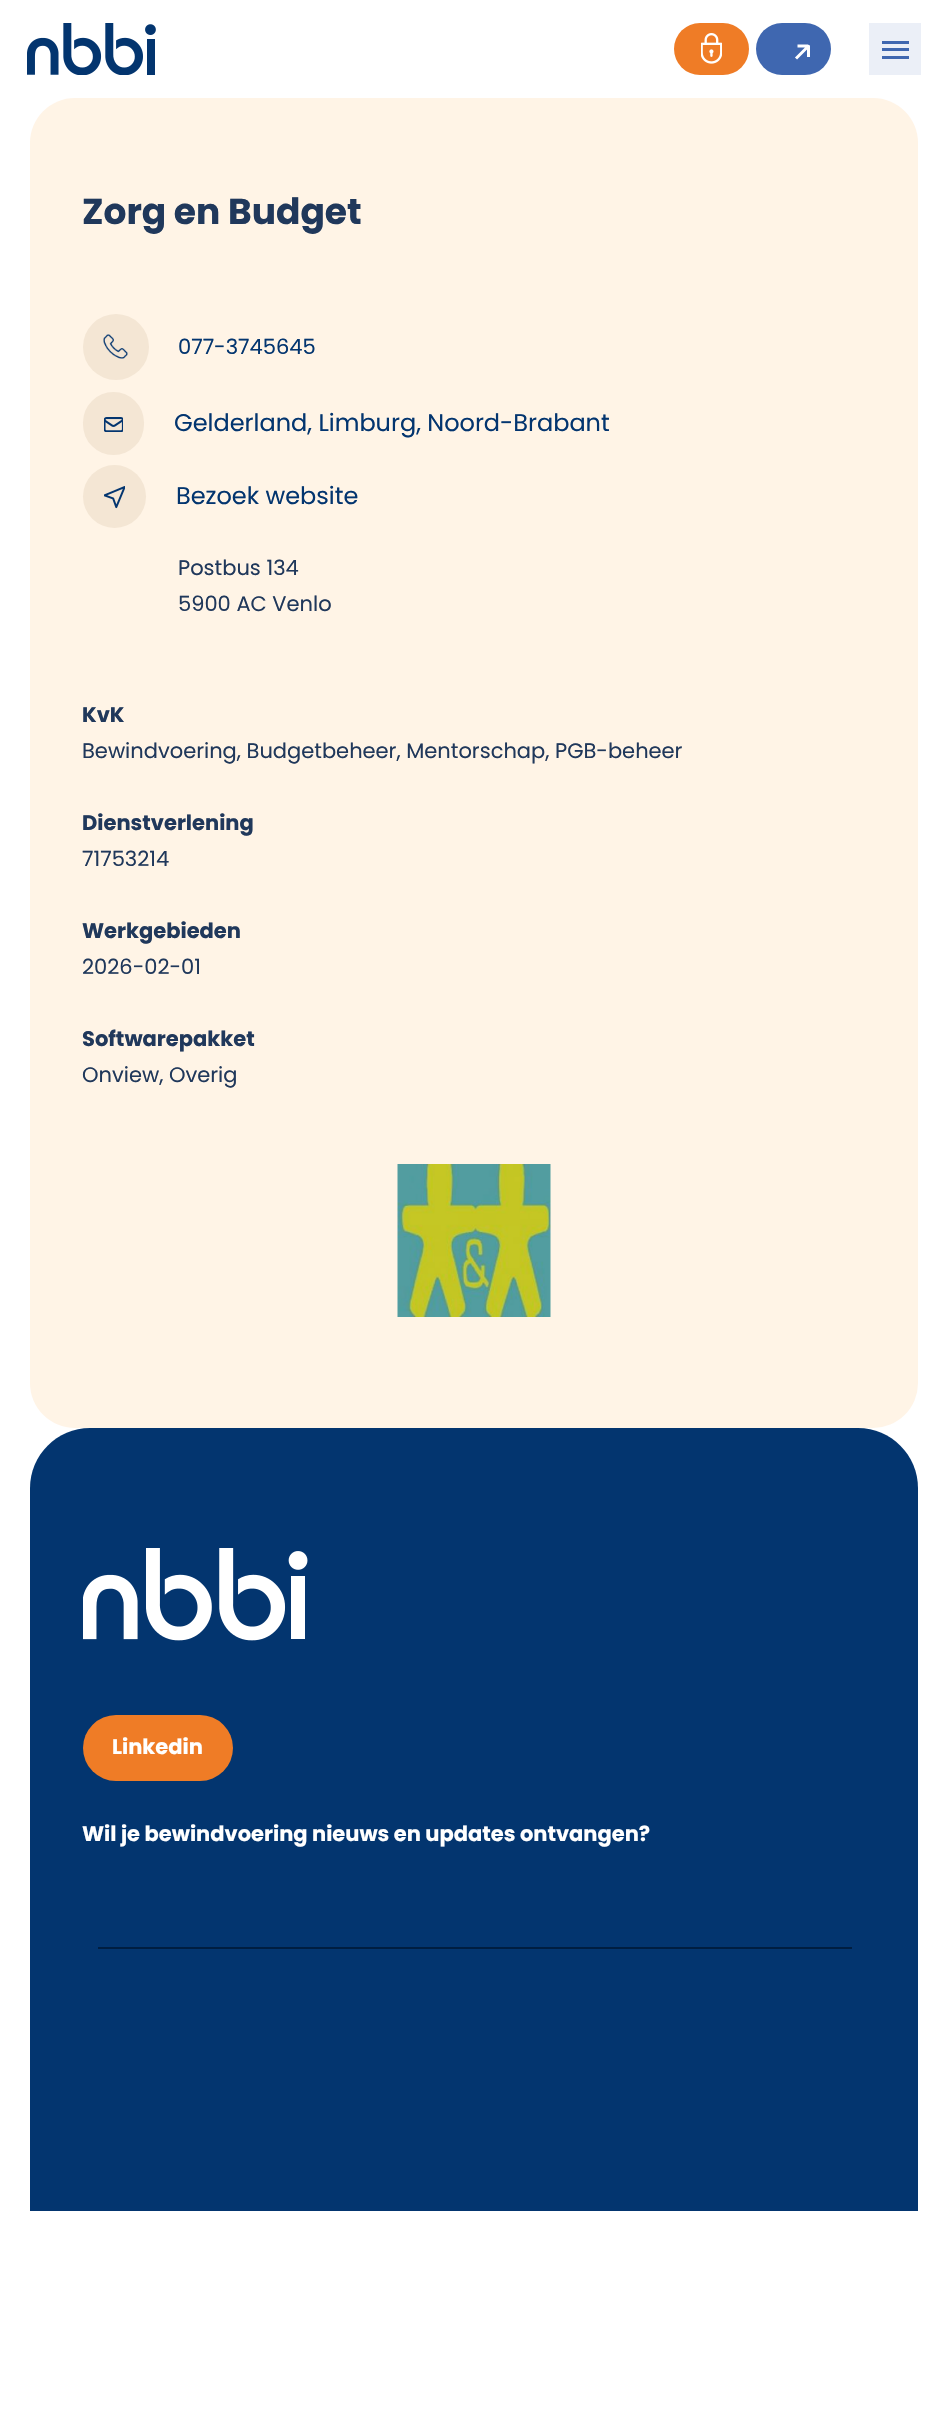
#include "include/core/SkBlurTypes.h"
#include "include/core/SkCanvas.h"
#include "include/core/SkData.h"
#include "include/core/SkFont.h"
#include "include/core/SkFontMgr.h"
#include "include/core/SkImage.h"
#include "include/core/SkMaskFilter.h"
#include "include/core/SkPaint.h"
#include "include/core/SkPathBuilder.h"
#include "include/core/SkTextBlob.h"
#include "include/effects/SkDashPathEffect.h"
#include "include/effects/SkGradientShader.h"
#include "include/utils/SkParsePath.h"

extern sk_sp<SkFontMgr> fontMgr;

void draw(SkCanvas* canvas) {
    SkPaint p;
    p.setAntiAlias(true);
    auto font = [&](const char* family, int weight, float size, bool italic = false) {
        SkFontStyle style(weight, SkFontStyle::kNormal_Width,
            italic ? SkFontStyle::kItalic_Slant : SkFontStyle::kUpright_Slant);
        SkFont result(fontMgr->matchFamilyStyle(family, style), size);
        result.setSubpixel(true);
        return result;
    };
    auto drawPhoto = [&](const char* path, float l, float t, float r, float b) {
        auto image = SkImages::DeferredFromEncodedData(SkData::MakeFromFileName(path));
        canvas->drawImageRect(image, SkRect::MakeLTRB(l, t, r, b), SkSamplingOptions());
    };
    canvas->clear(0xFFFFFFFF);
    drawPhoto("media/1.png", 27, 23, 156, 75);
    p.setColor(0xFFEF7C26);
    canvas->drawRoundRect(SkRect::MakeLTRB(674, 23, 749, 75), 26, 26, p);
    drawPhoto("media/2.png", 701, 33, 722, 64);
    p.setColor(0xFF3F67B0);
    canvas->drawRoundRect(SkRect::MakeLTRB(756, 23, 831, 75), 26, 26, p);
    p.setStyle(SkPaint::kStroke_Style);
    p.setStrokeWidth(3);
    p.setColor(0xFFFFFFFF);
    canvas->drawPath(SkPathBuilder().moveTo(797.5f, 46).lineTo(807.5f, 46).lineTo(808.5f, 46.5f).lineTo(808.5f, 57).moveTo(808, 46.5f).lineTo(796, 58.5f).detach(), p);
    p.setStyle(SkPaint::kFill_Style);
    {
        const struct { float l, t, r, b; SkColor color; } items[] = {
            {869, 23, 921, 75, 0xFFEBEFF7},
            {882, 41, 909, 44, 0xFF3F67B0},
            {882, 48, 909, 51, 0xFF3F67B0},
            {882, 56, 909, 59, 0xFF3F67B0},
        };
        for (auto [l, t, r, b, color] : items) {
            p.setColor(color);
            canvas->drawRect(SkRect::MakeLTRB(l, t, r, b), p);
        }
    }
    p.setColor(0xFFFFF4E6);
    canvas->drawRoundRect(SkRect::MakeLTRB(30, 98, 918, 1428), 45, 45, p);
    auto font1 = font("Poppins", 700, 36);
    p.setColor(0xFF20385B);
    canvas->drawString("Zorg en Budget", 82, 224, font1, p);
    p.setColor(0xFFF4E6D4);
    canvas->drawCircle(116, 347, 33, p);
    drawPhoto("media/3.png", 103, 334, 128, 359);
    auto font2 = font("Poppins", 400, 21);
    p.setColor(0xFF03356F);
    canvas->drawString("077-3745645", 178, 354, font2, p);
    p.setColor(0xFFF4E6D4);
    canvas->drawRoundRect(SkRect::MakeLTRB(83, 392, 144, 455), 30.5f, 30.5f, p);
    drawPhoto("media/4.png", 104, 417, 123, 432);
    auto font3 = font("Poppins", 400, 24);
    p.setColor(0xFF03356F);
    canvas->drawString("Gelderland, Limburg, Noord-Brabant", 174, 431, font3, p);
    p.setColor(0xFFF4E6D4);
    canvas->drawCircle(114.5f, 496.5f, 31.5f, p);
    drawPhoto("media/5.png", 104, 486, 125, 509);
    p.setColor(0xFF03356F);
    canvas->drawString("Bezoek website", 176, 504, font3, p);
    p.setColor(0xFF20385B);
    canvas->drawString("Postbus 134", 178, 575, font2, p);
    canvas->drawString("5900 AC Venlo", 178, 611, font2, p);
    auto font4 = font("Poppins", 700, 21);
    canvas->drawString("KvK", 82, 722, font4, p);
    canvas->drawString("Bewindvoering, Budgetbeheer, Mentorschap, PGB-beheer", 82, 758, font2, p);
    canvas->drawString("Dienstverlening", 82, 830, font4, p);
    canvas->drawString("71753214", 82, 866, font2, p);
    canvas->drawString("Werkgebieden", 82, 938, font4, p);
    canvas->drawString("2026-02-01", 82, 974, font2, p);
    canvas->drawString("Softwarepakket", 82, 1046, font4, p);
    canvas->drawString("Onview, Overig", 82, 1082, font2, p);
    drawPhoto("media/6.png", 397, 1164, 551, 1317);
    p.setColor(0xFF03356F);
    canvas->drawPath(SkPathBuilder().moveTo(90, 1428).lineTo(858, 1428).cubicTo(891, 1428, 918, 1455, 918, 1488).lineTo(918, 2211).lineTo(30, 2211).lineTo(30, 1488).cubicTo(30, 1455, 57, 1428, 90, 1428).close().detach(), p);
    drawPhoto("media/7.png", 83, 1548, 308, 1641);
    p.setColor(0xFFEF7C26);
    canvas->drawRoundRect(SkRect::MakeLTRB(83, 1715, 233, 1781), 33, 33, p);
    p.setColor(0xFFFFFFFF);
    canvas->drawString("Linkedin", 112, 1754, font4, p);
    canvas->drawString("Wil je bewindvoering nieuws en updates ontvangen?", 82, 1841, font4, p);
    p.setColor(0xFF001E41);
    canvas->drawRect(SkRect::MakeLTRB(98, 1947, 852, 1949), p);
}
